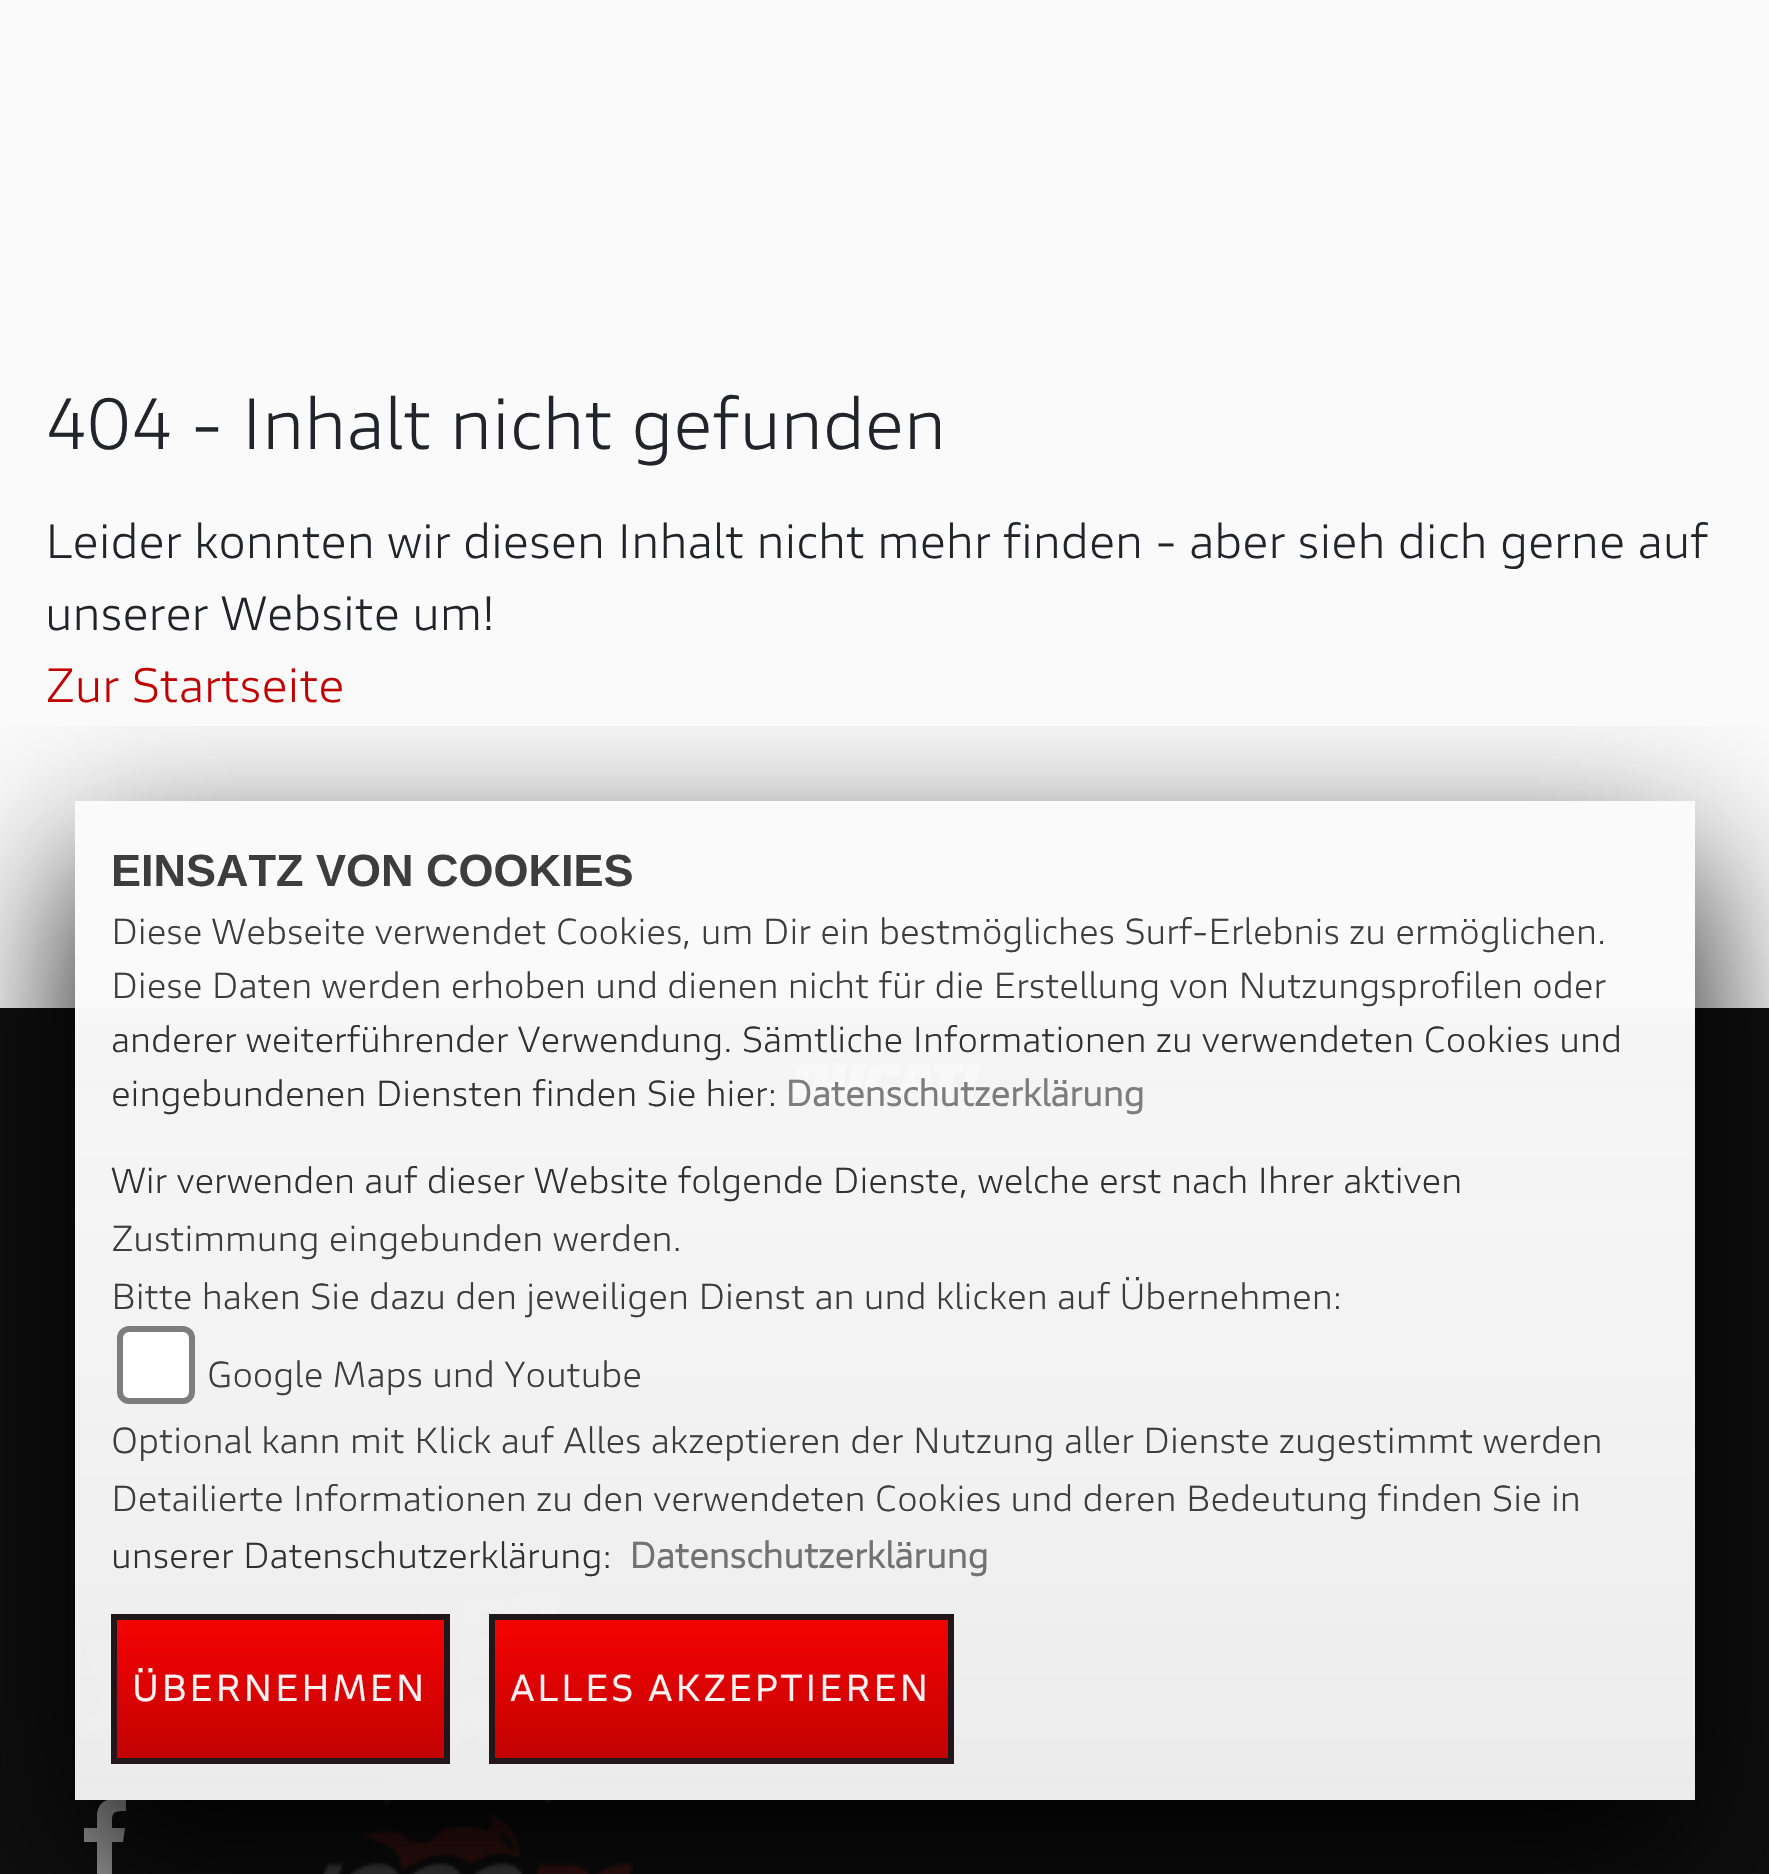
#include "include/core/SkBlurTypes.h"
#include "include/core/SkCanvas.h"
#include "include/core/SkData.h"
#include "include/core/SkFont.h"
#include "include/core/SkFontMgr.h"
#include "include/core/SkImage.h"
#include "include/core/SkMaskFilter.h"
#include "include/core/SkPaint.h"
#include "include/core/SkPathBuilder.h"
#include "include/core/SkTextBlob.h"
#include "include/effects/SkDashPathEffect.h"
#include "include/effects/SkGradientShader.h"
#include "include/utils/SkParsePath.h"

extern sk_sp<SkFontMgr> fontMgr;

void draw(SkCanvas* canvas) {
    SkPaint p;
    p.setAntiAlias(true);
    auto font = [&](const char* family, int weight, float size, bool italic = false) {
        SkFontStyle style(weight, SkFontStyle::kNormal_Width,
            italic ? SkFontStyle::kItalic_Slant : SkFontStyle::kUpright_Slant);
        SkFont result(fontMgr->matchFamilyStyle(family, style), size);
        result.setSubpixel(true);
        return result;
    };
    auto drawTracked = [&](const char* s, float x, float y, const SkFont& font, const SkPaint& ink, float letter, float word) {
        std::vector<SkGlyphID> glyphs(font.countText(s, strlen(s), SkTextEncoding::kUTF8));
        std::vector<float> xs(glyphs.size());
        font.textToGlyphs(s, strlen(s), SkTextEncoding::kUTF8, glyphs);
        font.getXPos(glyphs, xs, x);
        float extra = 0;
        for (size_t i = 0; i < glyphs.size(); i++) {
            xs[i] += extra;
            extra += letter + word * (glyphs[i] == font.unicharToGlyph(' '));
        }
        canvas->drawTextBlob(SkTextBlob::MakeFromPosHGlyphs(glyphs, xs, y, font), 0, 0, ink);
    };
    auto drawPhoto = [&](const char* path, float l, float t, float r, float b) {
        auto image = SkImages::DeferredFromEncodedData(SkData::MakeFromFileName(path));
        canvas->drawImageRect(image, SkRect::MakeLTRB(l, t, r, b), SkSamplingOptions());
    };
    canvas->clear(0xFFFAFAFA);
    auto font1 = font("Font", 400, 72);
    p.setColor(0xFF212529);
    canvas->drawString("404 - Inhalt nicht gefunden", 45, 449, font1, p);
    auto font2 = font("Font", 400, 48);
    canvas->drawString("Leider konnten wir diesen Inhalt nicht mehr finden - aber sieh dich gerne auf", 45, 558, font2, p);
    canvas->drawString("unserer Website um!", 45, 630, font2, p);
    p.setColor(0xFFC00000);
    canvas->drawString("Zur Startseite", 45, 702, font2, p);
    p.setColor(0xFF0F0F0F);
    canvas->drawRect(SkRect::MakeLTRB(0, 1008, 1769, 1874), p);
    drawPhoto("media/1.png", 791, 1062, 981, 1098);
    drawPhoto("media/2.png", 81, 1590, 559, 1747);
    p.setColor(0xFFAAAAAA);
    canvas->drawPath(SkPathBuilder().moveTo(123, 1842).lineTo(112, 1842).lineTo(112, 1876).lineTo(97, 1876).lineTo(97, 1842).lineTo(84, 1842).lineTo(84, 1828).lineTo(97, 1828).lineTo(97, 1813).cubicTo(100, 1797, 114, 1798, 126, 1799).lineTo(126, 1811).cubicTo(111, 1811, 112, 1813, 112, 1828).lineTo(125, 1828).close().detach(), p);
    drawPhoto("media/3.png", 323, 1770, 633, 1874);
    canvas->save();
    canvas->clipRect(SkRect::MakeLTRB(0, 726, 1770, 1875));
    canvas->clipPath(SkPathBuilder(SkPathFillType::kEvenOdd).moveTo(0, 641).lineTo(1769, 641).lineTo(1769, 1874).lineTo(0, 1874).close().moveTo(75, 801).lineTo(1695, 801).lineTo(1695, 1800).lineTo(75, 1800).close().detach(), true);
    p.setColor(0xF2000000);
    p.setMaskFilter(SkMaskFilter::MakeBlur(kNormal_SkBlurStyle, 75));
    canvas->drawRect(SkRect::MakeLTRB(75, 867, 1695, 1866), p);
    p.setMaskFilter(nullptr);
    canvas->restore();
    p.setColor(0xF2FAFAFA);
    canvas->drawRect(SkRect::MakeLTRB(75, 1008, 1695, 1800), p);
    {
        const SkColor colors[] = {0x78FFFFFF, 0xF2EBEBEB};
        const float stops[] = {0, 1};
        const SkPoint ends[] = {{885, 801}, {885, 1800}};
        p.setShader(SkGradientShader::MakeLinear(ends, colors, stops, 2, SkTileMode::kClamp));
        p.setAlpha(255);
    }
    canvas->drawRect(SkRect::MakeLTRB(75, 1008, 1695, 1800), p);
    auto font3 = font("Liberation Sans", 700, 45);
    p.setShader(nullptr);
    p.setColor(0xFF3D3D3D);
    canvas->drawString("EINSATZ VON COOKIES", 111, 886, font3, p);
    auto font4 = font("Font", 400, 36);
    canvas->drawString("Diese Webseite verwendet Cookies, um Dir ein bestmögliches Surf-Erlebnis zu ermöglichen.", 111, 944, font4, p);
    canvas->drawString("Diese Daten werden erhoben und dienen nicht für die Erstellung von Nutzungsprofilen oder", 111, 998, font4, p);
    p.setColor(0xFF313131);
    canvas->drawString("anderer weiterführender Verwendung. Sämtliche Informationen zu verwendeten Cookies und", 111, 1052, font4, p);
    canvas->drawString("eingebundenen Diensten finden Sie hier:", 111, 1106, font4, p);
    auto font5 = font("Font", 700, 36);
    p.setColor(0xFF7D7D7D);
    canvas->drawString("Datenschutzerklärung", 785, 1106, font5, p);
    p.setColor(0xFF313131);
    canvas->drawString("Wir verwenden auf dieser Website folgende Dienste, welche erst nach Ihrer aktiven", 111, 1193, font4, p);
    p.setColor(0xFF3D3D3D);
    canvas->drawString("Zustimmung eingebunden werden.", 111, 1251, font4, p);
    canvas->drawString("Bitte haken Sie dazu den jeweiligen Dienst an und klicken auf Übernehmen:", 111, 1309, font4, p);
    p.setColor(0xF2FFFFFF);
    canvas->drawRoundRect(SkRect::MakeLTRB(117, 1326, 195, 1404), 12, 12, p);
    p.setStyle(SkPaint::kStroke_Style);
    p.setStrokeWidth(6);
    p.setColor(0xF2767676);
    canvas->drawRoundRect(SkRect::MakeLTRB(120, 1329, 192, 1401), 9, 9, p);
    p.setStyle(SkPaint::kFill_Style);
    p.setColor(0xFF3D3D3D);
    {
        const struct { const char* s; float x, y; } items[] = {
            {"Google Maps und Youtube", 207, 1387},
            {"Optional kann mit Klick auf Alles akzeptieren der Nutzung aller Dienste zugestimmt werden", 111, 1453},
            {"Detailierte Informationen zu den verwendeten Cookies und deren Bedeutung finden Sie in", 111, 1511},
        };
        for (auto [s, x, y] : items) {
            canvas->drawString(s, x, y, font4, p);
        }
    }
    p.setColor(0xFF313131);
    canvas->drawString("unserer Datenschutzerklärung:", 111, 1568, font4, p);
    p.setColor(0xFF727272);
    canvas->drawString("Datenschutzerklärung", 629, 1568, font5, p);
    {
        const SkColor colors[] = {0xFFF40202, 0xFFC30202};
        const float stops[] = {0, 1};
        const SkPoint ends[] = {{281, 1482}, {281, 1620}};
        p.setShader(SkGradientShader::MakeLinear(ends, colors, stops, 2, SkTileMode::kClamp));
        p.setAlpha(255);
    }
    canvas->drawRect(SkRect::MakeLTRB(111, 1614, 450, 1620), p);
    {
        const SkColor colors[] = {0xFFF40202, 0xFFC30202};
        const float stops[] = {0, 1};
        const SkPoint ends[] = {{281, 1620}, {281, 1758}};
        p.setShader(SkGradientShader::MakeLinear(ends, colors, stops, 2, SkTileMode::kClamp));
        p.setAlpha(255);
    }
    canvas->drawRect(SkRect::MakeLTRB(111, 1620, 450, 1758), p);
    {
        const SkColor colors[] = {0xFFF40202, 0xFFC30202};
        const float stops[] = {0, 1};
        const SkPoint ends[] = {{281, 1758}, {281, 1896}};
        p.setShader(SkGradientShader::MakeLinear(ends, colors, stops, 2, SkTileMode::kClamp));
        p.setAlpha(255);
    }
    canvas->drawRect(SkRect::MakeLTRB(111, 1758, 450, 1764), p);
    p.setStyle(SkPaint::kStroke_Style);
    p.setShader(nullptr);
    p.setColor(0xF216171A);
    canvas->drawRect(SkRect::MakeLTRB(114, 1617, 447, 1761), p);
    p.setStyle(SkPaint::kFill_Style);
    p.setColor(0xFFFDF2F2);
    drawTracked("ÜBERNEHMEN", 132, 1701, font5, p, 3.25f, 0);
    {
        const SkColor colors[] = {0xFFF40202, 0xFFC30202};
        const float stops[] = {0, 1};
        const SkPoint ends[] = {{722, 1482}, {722, 1620}};
        p.setShader(SkGradientShader::MakeLinear(ends, colors, stops, 2, SkTileMode::kClamp));
        p.setAlpha(255);
    }
    canvas->drawRect(SkRect::MakeLTRB(489, 1614, 954, 1620), p);
    {
        const SkColor colors[] = {0xFFF40202, 0xFFC30202};
        const float stops[] = {0, 1};
        const SkPoint ends[] = {{722, 1620}, {722, 1758}};
        p.setShader(SkGradientShader::MakeLinear(ends, colors, stops, 2, SkTileMode::kClamp));
        p.setAlpha(255);
    }
    canvas->drawRect(SkRect::MakeLTRB(489, 1620, 954, 1758), p);
    {
        const SkColor colors[] = {0xFFF30101, 0xFFC30101};
        const float stops[] = {0, 1};
        const SkPoint ends[] = {{722, 1758}, {722, 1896}};
        p.setShader(SkGradientShader::MakeLinear(ends, colors, stops, 2, SkTileMode::kClamp));
        p.setAlpha(255);
    }
    canvas->drawRect(SkRect::MakeLTRB(489, 1758, 954, 1764), p);
    p.setStyle(SkPaint::kStroke_Style);
    p.setShader(nullptr);
    p.setColor(0xF216171A);
    canvas->drawRect(SkRect::MakeLTRB(492, 1617, 951, 1761), p);
    p.setStyle(SkPaint::kFill_Style);
    p.setColor(0xFFFDF2F2);
    drawTracked("ALLES AKZEPTIEREN", 510, 1701, font5, p, 3.25f, 0);
}
